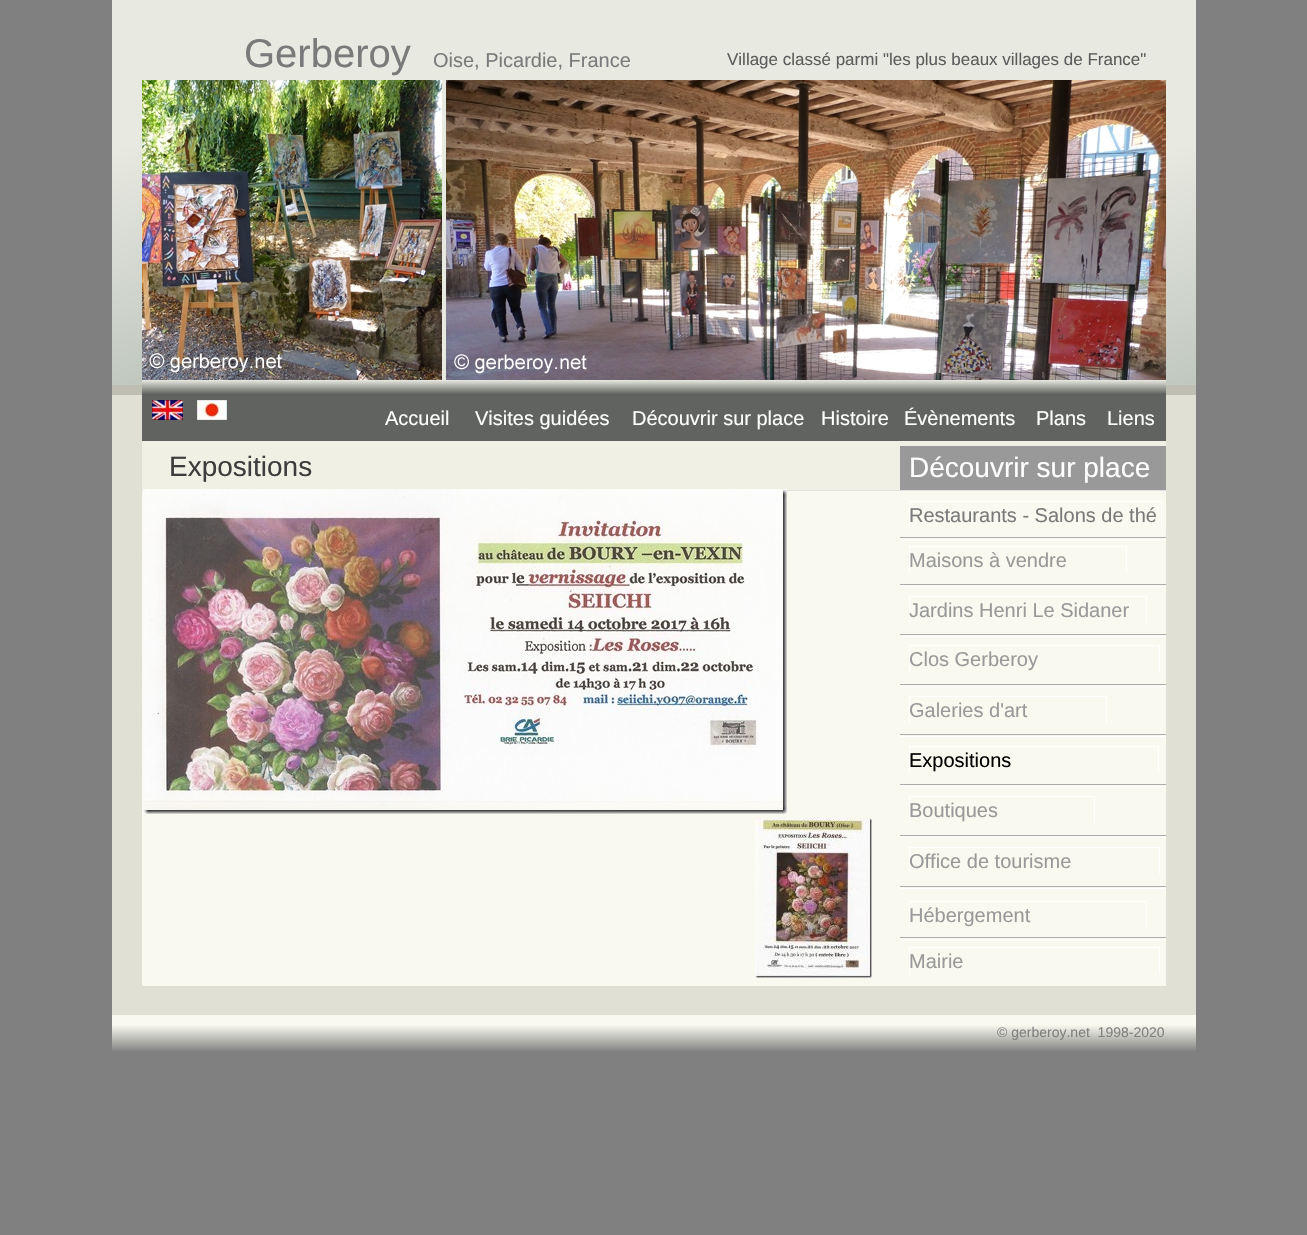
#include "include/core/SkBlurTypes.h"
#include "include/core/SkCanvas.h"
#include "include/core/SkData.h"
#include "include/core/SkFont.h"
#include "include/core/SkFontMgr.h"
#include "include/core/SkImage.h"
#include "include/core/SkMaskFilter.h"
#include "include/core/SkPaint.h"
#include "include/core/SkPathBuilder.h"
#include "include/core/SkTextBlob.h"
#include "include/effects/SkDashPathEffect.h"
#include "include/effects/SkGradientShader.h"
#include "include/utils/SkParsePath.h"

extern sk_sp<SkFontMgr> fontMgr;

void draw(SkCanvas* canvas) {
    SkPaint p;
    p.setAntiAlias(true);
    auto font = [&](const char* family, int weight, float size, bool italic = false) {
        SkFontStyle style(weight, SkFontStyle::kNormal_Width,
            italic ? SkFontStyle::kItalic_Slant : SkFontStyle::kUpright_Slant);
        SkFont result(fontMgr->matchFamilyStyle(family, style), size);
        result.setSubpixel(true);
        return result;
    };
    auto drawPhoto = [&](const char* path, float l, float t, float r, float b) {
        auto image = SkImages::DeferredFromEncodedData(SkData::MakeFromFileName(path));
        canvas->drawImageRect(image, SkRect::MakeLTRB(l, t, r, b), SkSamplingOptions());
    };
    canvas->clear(0xFF808080);
    {
        const SkColor colors[] = {0xFFE8E9E1, 0xFFC1C8C0};
        const float stops[] = {0, 1};
        const SkPoint ends[] = {{88, 160}, {172, 368}};
        p.setShader(SkGradientShader::MakeLinear(ends, colors, stops, 2, SkTileMode::kClamp));
        p.setAlpha(255);
    }
    canvas->drawRect(SkRect::MakeLTRB(112, 0, 142, 385), p);
    p.setShader(nullptr);
    p.setColor(0xFFE8E9E1);
    canvas->drawRect(SkRect::MakeLTRB(142, 0, 1166, 375), p);
    {
        const SkColor colors[] = {0xFFE8E9E1, 0xFFC1C8C0};
        const float stops[] = {0, 1};
        const SkPoint ends[] = {{1142, 160}, {1226, 368}};
        p.setShader(SkGradientShader::MakeLinear(ends, colors, stops, 2, SkTileMode::kClamp));
        p.setAlpha(255);
    }
    canvas->drawRect(SkRect::MakeLTRB(1166, 0, 1196, 385), p);
    auto font1 = font("Liberation Sans", 400, 40);
    p.setShader(nullptr);
    p.setColor(0xFF7A7A7A);
    canvas->drawString("Gerberoy", 244, 67, font1, p);
    auto font2 = font("Liberation Sans", 400, 20);
    canvas->drawString("Oise, Picardie, France", 433, 67, font2, p);
    auto font3 = font("Liberation Sans", 400, 17);
    p.setColor(0xFF5C5C5C);
    canvas->drawString("Village classé parmi \"les plus beaux villages de France\"", 727, 65, font3, p);
    {
        const SkColor colors[] = {0xFFE8E9E1, 0xFF60635F};
        const float stops[] = {0, 1};
        const SkPoint ends[] = {{705, 380}, {705, 394}};
        p.setShader(SkGradientShader::MakeLinear(ends, colors, stops, 2, SkTileMode::kClamp));
        p.setAlpha(255);
    }
    canvas->drawRect(SkRect::MakeLTRB(142, 375, 1166, 395), p);
    drawPhoto("media/1.png", 142, 80, 442, 380);
    drawPhoto("media/2.png", 446, 80, 1166, 380);
    p.setShader(nullptr);
    {
        const struct { float l, t, r, b; SkColor color; } items[] = {
            {112, 385, 142, 395, 0xFFBEBEB3},
            {1166, 385, 1196, 395, 0xFFBEBEB3},
            {112, 395, 142, 1015, 0xFFE0E1D4},
            {142, 395, 1166, 441, 0xFF60635F},
            {1166, 395, 1196, 1015, 0xFFE0E1D4},
        };
        for (auto [l, t, r, b, color] : items) {
            p.setColor(color);
            canvas->drawRect(SkRect::MakeLTRB(l, t, r, b), p);
        }
    }
    drawPhoto("media/3.png", 152, 400, 183, 420);
    drawPhoto("media/4.png", 197, 400, 227, 420);
    p.setColor(0xFFFFFFFF);
    {
        const struct { const char* s; float x, y; } items[] = {
            {"Accueil", 385, 425},
            {"Visites guidées", 475, 425},
            {"Découvrir sur place", 632, 425},
            {"Histoire", 821, 425},
            {"Évènements", 904, 425},
            {"Plans", 1036, 425},
            {"Liens", 1107, 425},
        };
        for (auto [s, x, y] : items) {
            canvas->drawString(s, x, y, font2, p);
        }
    }
    p.setColor(0xFFF1F0E5);
    canvas->drawRect(SkRect::MakeLTRB(142, 441, 1166, 490), p);
    auto font4 = font("Liberation Sans", 400, 28);
    p.setColor(0xFF3D3D3D);
    canvas->drawString("Expositions", 169, 476, font4, p);
    p.setColor(0xFF999999);
    canvas->drawRect(SkRect::MakeLTRB(900, 446, 1166, 490), p);
    p.setColor(0xFFFFFFFF);
    canvas->drawString("Découvrir sur place", 909, 477, font4, p);
    p.setColor(0xFFE0E0E0);
    canvas->drawRect(SkRect::MakeLTRB(142, 490, 1166, 491), p);
    p.setColor(0xFFF9F9EF);
    canvas->drawRect(SkRect::MakeLTRB(142, 491, 1166, 986), p);
    drawPhoto("media/5.png", 143, 489, 787, 814);
    {
        const struct { float l, t, r, b; SkColor color; } items[] = {
            {909, 501, 1162, 502, 0xFFFFFFFF},
            {1161, 501, 1162, 528, 0xFFFFFFFF},
            {909, 501, 910, 528, 0xFFFFFFFF},
        };
        for (auto [l, t, r, b, color] : items) {
            p.setColor(color);
            canvas->drawRect(SkRect::MakeLTRB(l, t, r, b), p);
        }
    }
    p.setColor(0xFF7A7A7A);
    canvas->drawString("Restaurants - Salons de thé", 909, 522, font2, p);
    {
        const struct { float l, t, r, b; SkColor color; } items[] = {
            {900, 537, 1166, 538, 0xFFADADAD},
            {900, 539, 1166, 540, 0xFFFFFFFF},
            {909, 546, 1127, 547, 0xFFFFFFFF},
            {1126, 546, 1127, 573, 0xFFFFFFFF},
            {909, 546, 910, 573, 0xFFFFFFFF},
        };
        for (auto [l, t, r, b, color] : items) {
            p.setColor(color);
            canvas->drawRect(SkRect::MakeLTRB(l, t, r, b), p);
        }
    }
    p.setColor(0xFF999999);
    canvas->drawString("Maisons à vendre", 909, 567, font2, p);
    {
        const struct { float l, t, r, b; SkColor color; } items[] = {
            {900, 584, 1166, 585, 0xFFADADAD},
            {900, 586, 1166, 587, 0xFFFFFFFF},
            {909, 596, 1147, 597, 0xFFFFFFFF},
            {1146, 596, 1147, 623, 0xFFFFFFFF},
            {909, 596, 910, 623, 0xFFFFFFFF},
        };
        for (auto [l, t, r, b, color] : items) {
            p.setColor(color);
            canvas->drawRect(SkRect::MakeLTRB(l, t, r, b), p);
        }
    }
    p.setColor(0xFF999999);
    canvas->drawString("Jardins Henri Le Sidaner", 909, 617, font2, p);
    {
        const struct { float l, t, r, b; SkColor color; } items[] = {
            {900, 634, 1166, 635, 0xFFADADAD},
            {900, 636, 1166, 637, 0xFFFFFFFF},
            {909, 645, 1160, 646, 0xFFFFFFFF},
            {1159, 645, 1160, 672, 0xFFFFFFFF},
            {909, 645, 910, 672, 0xFFFFFFFF},
        };
        for (auto [l, t, r, b, color] : items) {
            p.setColor(color);
            canvas->drawRect(SkRect::MakeLTRB(l, t, r, b), p);
        }
    }
    p.setColor(0xFF999999);
    canvas->drawString("Clos Gerberoy", 909, 666, font2, p);
    {
        const struct { float l, t, r, b; SkColor color; } items[] = {
            {900, 684, 1166, 685, 0xFFADADAD},
            {900, 686, 1166, 687, 0xFFFFFFFF},
            {909, 696, 1107, 697, 0xFFFFFFFF},
            {1106, 696, 1107, 723, 0xFFFFFFFF},
            {909, 696, 910, 723, 0xFFFFFFFF},
        };
        for (auto [l, t, r, b, color] : items) {
            p.setColor(color);
            canvas->drawRect(SkRect::MakeLTRB(l, t, r, b), p);
        }
    }
    p.setColor(0xFF999999);
    canvas->drawString("Galeries d'art", 909, 717, font2, p);
    {
        const struct { float l, t, r, b; SkColor color; } items[] = {
            {900, 734, 1166, 735, 0xFFADADAD},
            {900, 736, 1166, 737, 0xFFFFFFFF},
            {909, 746, 1159, 747, 0xFFFFFFFF},
            {1158, 746, 1159, 773, 0xFFFFFFFF},
            {909, 746, 910, 773, 0xFFFFFFFF},
        };
        for (auto [l, t, r, b, color] : items) {
            p.setColor(color);
            canvas->drawRect(SkRect::MakeLTRB(l, t, r, b), p);
        }
    }
    p.setColor(0xFF000000);
    canvas->drawString("Expositions", 909, 767, font2, p);
    {
        const struct { float l, t, r, b; SkColor color; } items[] = {
            {900, 784, 1166, 785, 0xFFADADAD},
            {900, 786, 1166, 787, 0xFFFFFFFF},
            {909, 796, 1095, 797, 0xFFFFFFFF},
            {1094, 796, 1095, 823, 0xFFFFFFFF},
            {909, 796, 910, 823, 0xFFFFFFFF},
        };
        for (auto [l, t, r, b, color] : items) {
            p.setColor(color);
            canvas->drawRect(SkRect::MakeLTRB(l, t, r, b), p);
        }
    }
    p.setColor(0xFF999999);
    canvas->drawString("Boutiques", 909, 817, font2, p);
    drawPhoto("media/6.png", 755, 818, 872, 978);
    {
        const struct { float l, t, r, b; SkColor color; } items[] = {
            {900, 835, 1166, 836, 0xFFADADAD},
            {900, 837, 1166, 838, 0xFFFFFFFF},
            {909, 847, 1160, 848, 0xFFFFFFFF},
            {1159, 847, 1160, 874, 0xFFFFFFFF},
            {909, 847, 910, 874, 0xFFFFFFFF},
        };
        for (auto [l, t, r, b, color] : items) {
            p.setColor(color);
            canvas->drawRect(SkRect::MakeLTRB(l, t, r, b), p);
        }
    }
    p.setColor(0xFF999999);
    canvas->drawString("Office de tourisme", 909, 868, font2, p);
    {
        const struct { float l, t, r, b; SkColor color; } items[] = {
            {900, 886, 1166, 887, 0xFFADADAD},
            {900, 888, 1166, 889, 0xFFFFFFFF},
            {909, 901, 1147, 902, 0xFFFFFFFF},
            {1146, 901, 1147, 928, 0xFFFFFFFF},
            {909, 901, 910, 928, 0xFFFFFFFF},
        };
        for (auto [l, t, r, b, color] : items) {
            p.setColor(color);
            canvas->drawRect(SkRect::MakeLTRB(l, t, r, b), p);
        }
    }
    p.setColor(0xFF999999);
    canvas->drawString("Hébergement", 909, 922, font2, p);
    {
        const struct { float l, t, r, b; SkColor color; } items[] = {
            {900, 937, 1166, 938, 0xFFADADAD},
            {900, 939, 1166, 940, 0xFFFFFFFF},
            {909, 947, 1160, 948, 0xFFFFFFFF},
            {1159, 947, 1160, 974, 0xFFFFFFFF},
            {909, 947, 910, 974, 0xFFFFFFFF},
        };
        for (auto [l, t, r, b, color] : items) {
            p.setColor(color);
            canvas->drawRect(SkRect::MakeLTRB(l, t, r, b), p);
        }
    }
    p.setColor(0xFF999999);
    canvas->drawString("Mairie", 909, 968, font2, p);
    p.setColor(0xFFE0E1D4);
    canvas->drawRect(SkRect::MakeLTRB(142, 986, 1166, 1015), p);
    {
        const SkColor colors[] = {0xFFF9F9EF, 0xFF808080};
        const float stops[] = {0, 1};
        const SkPoint ends[] = {{735, 1025}, {735, 1052}};
        p.setShader(SkGradientShader::MakeLinear(ends, colors, stops, 2, SkTileMode::kClamp));
        p.setAlpha(255);
    }
    canvas->drawRect(SkRect::MakeLTRB(112, 1015, 1196, 1051), p);
    auto font5 = font("Liberation Sans", 400, 14);
    p.setShader(nullptr);
    p.setColor(0xFF808080);
    canvas->drawString("© gerberoy.net  1998-2020", 997, 1037, font5, p);
}
